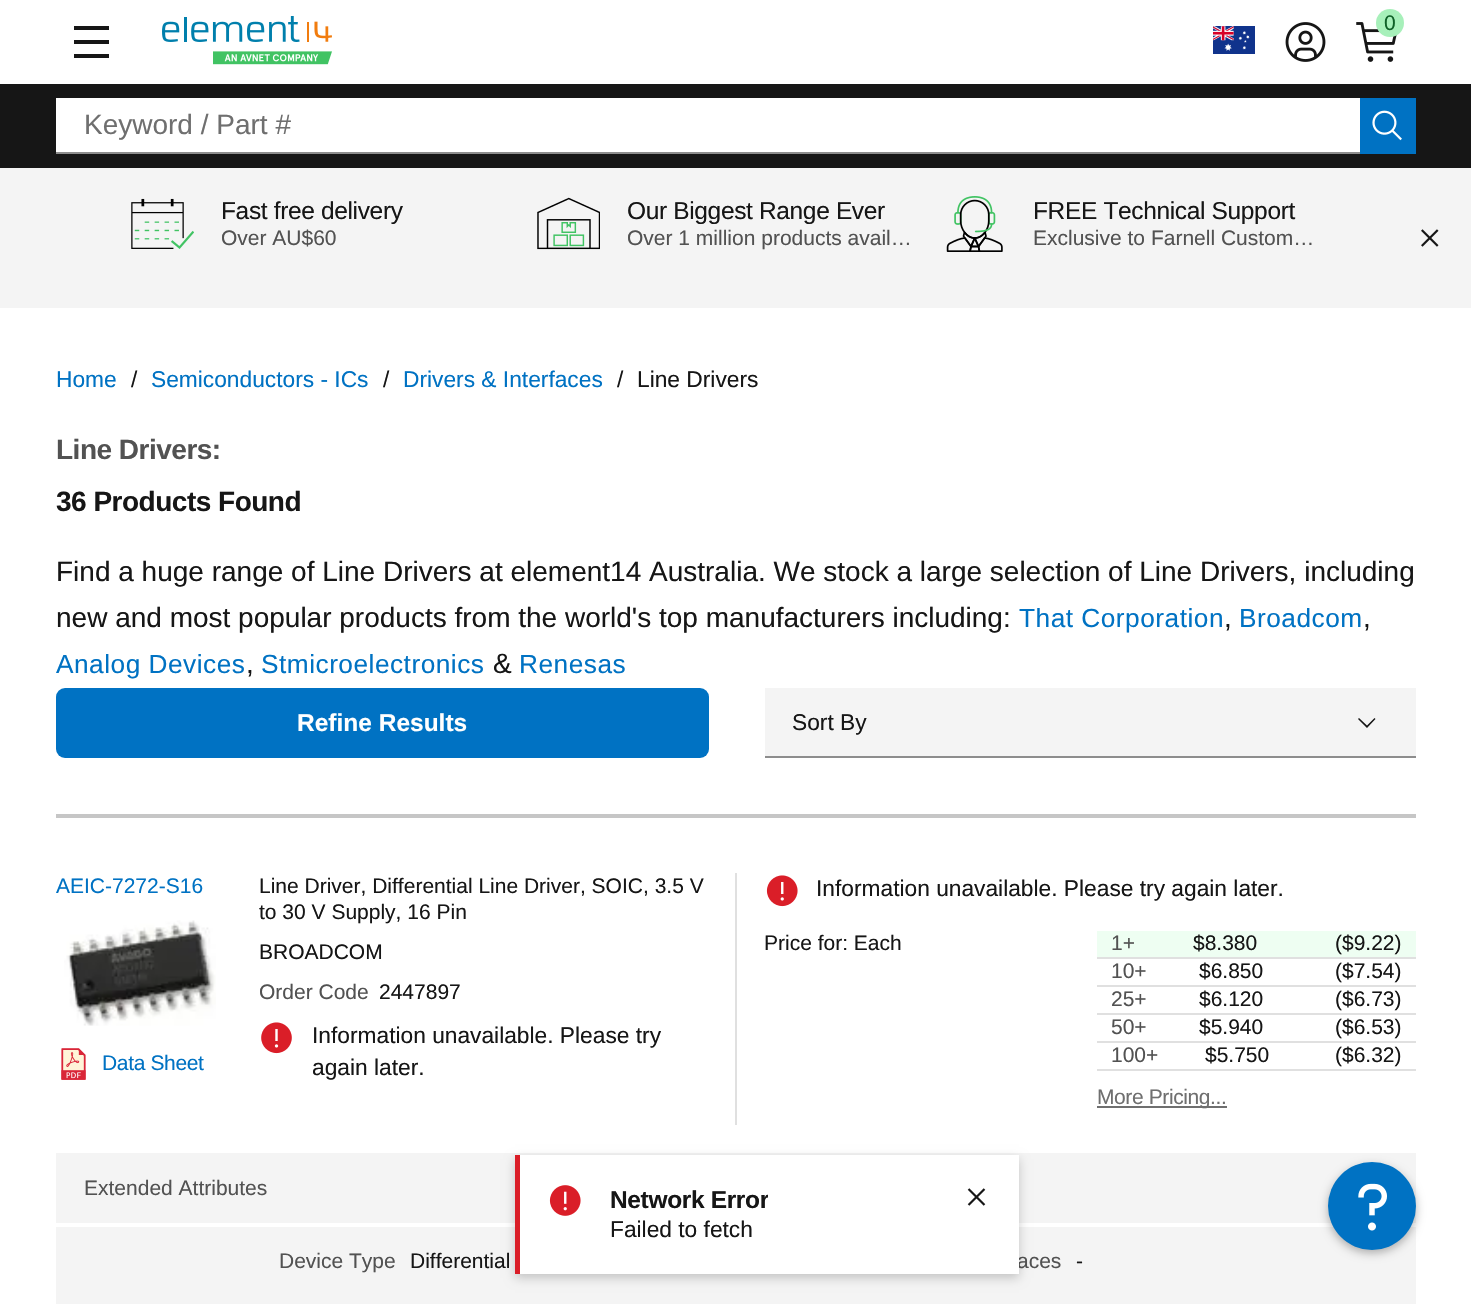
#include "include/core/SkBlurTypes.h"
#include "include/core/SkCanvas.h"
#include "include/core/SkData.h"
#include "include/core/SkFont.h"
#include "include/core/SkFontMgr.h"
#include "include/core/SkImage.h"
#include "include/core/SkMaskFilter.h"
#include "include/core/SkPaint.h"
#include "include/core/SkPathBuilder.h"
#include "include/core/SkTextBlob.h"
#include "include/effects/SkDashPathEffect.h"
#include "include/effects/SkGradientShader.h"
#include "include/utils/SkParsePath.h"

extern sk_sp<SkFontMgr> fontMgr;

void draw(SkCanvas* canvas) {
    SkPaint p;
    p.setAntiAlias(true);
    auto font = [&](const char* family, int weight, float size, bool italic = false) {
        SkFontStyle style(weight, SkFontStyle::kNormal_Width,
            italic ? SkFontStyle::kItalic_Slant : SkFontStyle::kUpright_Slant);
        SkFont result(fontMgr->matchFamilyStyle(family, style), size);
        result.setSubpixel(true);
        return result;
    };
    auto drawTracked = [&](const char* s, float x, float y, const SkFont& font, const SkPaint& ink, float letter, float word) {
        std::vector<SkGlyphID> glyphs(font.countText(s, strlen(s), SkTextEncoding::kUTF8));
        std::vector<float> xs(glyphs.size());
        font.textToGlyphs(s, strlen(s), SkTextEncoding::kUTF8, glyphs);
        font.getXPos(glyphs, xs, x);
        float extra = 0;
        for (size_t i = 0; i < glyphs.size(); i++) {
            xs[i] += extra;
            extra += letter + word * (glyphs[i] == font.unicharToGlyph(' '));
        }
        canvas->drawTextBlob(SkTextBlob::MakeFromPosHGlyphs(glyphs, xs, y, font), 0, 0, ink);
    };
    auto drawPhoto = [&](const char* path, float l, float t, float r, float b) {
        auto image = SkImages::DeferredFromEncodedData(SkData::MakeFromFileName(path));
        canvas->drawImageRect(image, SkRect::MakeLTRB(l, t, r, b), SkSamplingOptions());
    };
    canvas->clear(0xFFFFFFFF);
    {
        const struct { float l, t, r, b; SkColor color; } items[] = {
            {74, 26, 109, 30, 0xFF161616},
            {74, 40, 109, 44, 0xFF161616},
            {74, 54, 109, 58, 0xFF161616},
        };
        for (auto [l, t, r, b, color] : items) {
            p.setColor(color);
            canvas->drawRect(SkRect::MakeLTRB(l, t, r, b), p);
        }
    }
    drawPhoto("media/1.png", 162, 16, 332, 65);
    drawPhoto("media/2.png", 1213, 26, 1255, 54);
    drawPhoto("media/3.png", 1285, 22, 1326, 62);
    drawPhoto("media/4.png", 1356, 22, 1397, 62);
    p.setColor(0xFFA7F0BA);
    canvas->drawCircle(1390, 23, 14, p);
    auto font1 = font("Liberation Sans", 400, 21);
    p.setColor(0xFF0E6027);
    canvas->drawString("0", 1384, 30, font1, p);
    {
        const struct { float l, t, r, b; SkColor color; } items[] = {
            {0, 84, 1471, 168, 0xFF161616},
            {56, 98, 1360, 152, 0xFFFFFFFF},
            {56, 152, 1360, 154, 0xFF8D8D8D},
        };
        for (auto [l, t, r, b, color] : items) {
            p.setColor(color);
            canvas->drawRect(SkRect::MakeLTRB(l, t, r, b), p);
        }
    }
    auto font2 = font("Liberation Sans", 400, 28);
    p.setColor(0xFF6F6F6F);
    canvas->drawString("Keyword / Part #", 84, 134, font2, p);
    p.setColor(0xFF0072C3);
    canvas->drawRect(SkRect::MakeLTRB(1360, 98, 1416, 154), p);
    drawPhoto("media/5.png", 1372, 110, 1402, 141);
    p.setColor(0xFFF4F4F4);
    canvas->drawRect(SkRect::MakeLTRB(0, 168, 1471, 308), p);
    drawPhoto("media/6.png", 131, 198, 194, 249);
    auto font3 = font("Liberation Sans", 400, 24.5f);
    p.setColor(0xFF161616);
    drawTracked("Fast free delivery", 221, 219, font3, p, -0.35f, 0);
    p.setColor(0xFF525252);
    canvas->drawString("Over AU$60", 221, 245, font1, p);
    drawPhoto("media/7.png", 537, 197, 600, 250);
    p.setColor(0xFF161616);
    drawTracked("Our Biggest Range Ever", 627, 219, font3, p, -0.35f, 0);
    p.setColor(0xFF525252);
    canvas->drawString("Over 1 million products avail…", 627, 245, font1, p);
    drawPhoto("media/8.png", 946, 196, 1003, 252);
    p.setColor(0xFF161616);
    drawTracked("FREE Technical Support", 1033, 219, font3, p, -0.35f, 0);
    p.setColor(0xFF525252);
    canvas->drawString("Exclusive to Farnell Custom…", 1033, 245, font1, p);
    drawPhoto("media/9.png", 1421, 229, 1439, 247);
    auto font4 = font("Liberation Sans", 400, 22.75f);
    p.setColor(0xFF0072C3);
    canvas->drawString("Home", 56, 387, font4, p);
    p.setColor(0xFF161616);
    canvas->drawString("/", 131, 387, font4, p);
    p.setColor(0xFF0072C3);
    canvas->drawString("Semiconductors - ICs", 151, 387, font4, p);
    p.setColor(0xFF161616);
    canvas->drawString("/", 383, 387, font4, p);
    p.setColor(0xFF0072C3);
    canvas->drawString("Drivers & Interfaces", 403, 387, font4, p);
    p.setColor(0xFF161616);
    canvas->drawString("/", 617, 387, font4, p);
    canvas->drawString("Line Drivers", 637, 387, font4, p);
    auto font5 = font("Liberation Sans", 700, 28);
    p.setColor(0xFF525252);
    drawTracked("Line Drivers:", 56, 459, font5, p, -0.5f, 0);
    p.setColor(0xFF161616);
    drawTracked("36 Products Found", 56, 511, font5, p, -0.5f, 0);
    canvas->drawString("Find a huge range of Line Drivers at element14 Australia. We stock a large selection of Line Drivers, including", 56, 581, font2, p);
    canvas->drawString("new and most popular products from the world's top manufacturers including:", 56, 627, font2, p);
    auto font6 = font("Liberation Sans", 400, 26.25f);
    p.setColor(0xFF0072C3);
    drawTracked("That Corporation", 1019, 627, font6, p, 0.5f, 0);
    p.setColor(0xFF161616);
    canvas->drawString(",", 1224, 627, font2, p);
    p.setColor(0xFF0072C3);
    drawTracked("Broadcom", 1239, 627, font6, p, 0.5f, 0);
    p.setColor(0xFF161616);
    canvas->drawString(",", 1363, 627, font2, p);
    p.setColor(0xFF0072C3);
    drawTracked("Analog Devices", 56, 673, font6, p, 0.5f, 0);
    p.setColor(0xFF161616);
    canvas->drawString(",", 246, 673, font2, p);
    p.setColor(0xFF0072C3);
    drawTracked("Stmicroelectronics", 261, 673, font6, p, 0.5f, 0);
    p.setColor(0xFF161616);
    canvas->drawString("&", 493, 673, font2, p);
    p.setColor(0xFF0072C3);
    drawTracked("Renesas", 519, 673, font6, p, 0.5f, 0);
    canvas->drawRoundRect(SkRect::MakeLTRB(56, 688, 709, 758), 9, 9, p);
    auto font7 = font("Liberation Sans", 700, 24.5f);
    p.setColor(0xFFFFFFFF);
    canvas->drawString("Refine Results", 297, 731, font7, p);
    p.setColor(0xFFF4F4F4);
    canvas->drawRect(SkRect::MakeLTRB(765, 688, 1416, 756), p);
    p.setColor(0xFF8D8D8D);
    canvas->drawRect(SkRect::MakeLTRB(765, 756, 1416, 758), p);
    p.setColor(0xFF161616);
    canvas->drawString("Sort By", 792, 730, font4, p);
    canvas->drawPath(SkPathBuilder().moveTo(1367, 728).lineTo(1358, 719).lineTo(1359, 718).lineTo(1367, 725.5f).lineTo(1374.5f, 718).lineTo(1375.5f, 719).close().detach(), p);
    p.setColor(0xFFC6C6C6);
    canvas->drawRect(SkRect::MakeLTRB(56, 814, 1416, 818), p);
    p.setColor(0xFF0072C3);
    canvas->drawString("AEIC-7272-S16", 56, 893, font1, p);
    drawPhoto("media/10.png", 64, 920, 216, 1026);
    drawPhoto("media/11.png", 61, 1048, 86, 1080);
    drawTracked("Data Sheet", 102, 1070, font1, p, -0.35f, 0);
    p.setColor(0xFFE0E0E0);
    canvas->drawRect(SkRect::MakeLTRB(735, 873, 737, 1125), p);
    p.setColor(0xFF161616);
    {
        const struct { const char* s; float x, y; } items[] = {
            {"Line Driver, Differential Line Driver, SOIC, 3.5 V", 259, 893},
            {"to 30 V Supply, 16 Pin", 259, 919},
            {"BROADCOM", 259, 959},
        };
        for (auto [s, x, y] : items) {
            canvas->drawString(s, x, y, font1, p);
        }
    }
    p.setColor(0xFF525252);
    canvas->drawString("Order Code", 259, 999, font1, p);
    p.setColor(0xFF161616);
    canvas->drawString("2447897", 379, 999, font1, p);
    drawPhoto("media/12.png", 261, 1022, 292, 1054);
    canvas->drawString("Information unavailable. Please try", 312, 1043, font4, p);
    canvas->drawString("again later.", 312, 1075, font4, p);
    drawPhoto("media/13.png", 766, 875, 798, 907);
    canvas->drawString("Information unavailable. Please try again later.", 816, 896, font4, p);
    canvas->drawString("Price for: Each", 764, 950, font1, p);
    p.setColor(0xFFEEFEF2);
    canvas->drawRect(SkRect::MakeLTRB(1097, 931, 1416, 957), p);
    p.setColor(0xFFE0E0E0);
    canvas->drawRect(SkRect::MakeLTRB(1097, 957, 1416, 959), p);
    p.setColor(0xFF525252);
    canvas->drawString("1+", 1111, 950, font1, p);
    p.setColor(0xFF161616);
    canvas->drawString("$8.380", 1193, 950, font1, p);
    canvas->drawString("($9.22)", 1335, 950, font1, p);
    p.setColor(0xFFE0E0E0);
    canvas->drawRect(SkRect::MakeLTRB(1097, 985, 1416, 987), p);
    p.setColor(0xFF525252);
    canvas->drawString("10+", 1111, 978, font1, p);
    p.setColor(0xFF161616);
    canvas->drawString("$6.850", 1199, 978, font1, p);
    canvas->drawString("($7.54)", 1335, 978, font1, p);
    p.setColor(0xFFE0E0E0);
    canvas->drawRect(SkRect::MakeLTRB(1097, 1013, 1416, 1015), p);
    p.setColor(0xFF525252);
    canvas->drawString("25+", 1111, 1006, font1, p);
    p.setColor(0xFF161616);
    canvas->drawString("$6.120", 1199, 1006, font1, p);
    canvas->drawString("($6.73)", 1335, 1006, font1, p);
    p.setColor(0xFFE0E0E0);
    canvas->drawRect(SkRect::MakeLTRB(1097, 1041, 1416, 1043), p);
    p.setColor(0xFF525252);
    canvas->drawString("50+", 1111, 1034, font1, p);
    p.setColor(0xFF161616);
    canvas->drawString("$5.940", 1199, 1034, font1, p);
    canvas->drawString("($6.53)", 1335, 1034, font1, p);
    p.setColor(0xFFE0E0E0);
    canvas->drawRect(SkRect::MakeLTRB(1097, 1069, 1416, 1071), p);
    p.setColor(0xFF525252);
    canvas->drawString("100+", 1111, 1062, font1, p);
    p.setColor(0xFF161616);
    canvas->drawString("$5.750", 1205, 1062, font1, p);
    canvas->drawString("($6.32)", 1335, 1062, font1, p);
    p.setColor(0xFF6F6F6F);
    canvas->drawRect(SkRect::MakeLTRB(1097, 1106, 1227, 1108), p);
    drawTracked("More Pricing...", 1097, 1104, font1, p, -0.4f, 0);
    p.setColor(0xFFF4F4F4);
    canvas->drawRect(SkRect::MakeLTRB(56, 1153, 1416, 1304), p);
    p.setColor(0xFF525252);
    canvas->drawString("Extended Attributes", 84, 1195, font1, p);
    p.setColor(0xFFFFFFFF);
    canvas->drawRect(SkRect::MakeLTRB(56, 1223, 1416, 1227), p);
    p.setColor(0xFF525252);
    canvas->drawString("Device Type", 279, 1268, font1, p);
    p.setColor(0xFF161616);
    canvas->drawString("Differential", 410, 1268, font1, p);
    p.setColor(0xFF525252);
    canvas->drawString("aces", 1017, 1268, font1, p);
    p.setColor(0xFF161616);
    canvas->drawString("-", 1076, 1268, font1, p);
    p.setColor(0x33000000);
    p.setMaskFilter(SkMaskFilter::MakeBlur(kNormal_SkBlurStyle, 5));
    canvas->drawRect(SkRect::MakeLTRB(515, 1159, 1019, 1278), p);
    p.setMaskFilter(nullptr);
    p.setColor(0xFFFFFFFF);
    canvas->drawRect(SkRect::MakeLTRB(520, 1155, 1019, 1274), p);
    p.setColor(0xFFDA1E28);
    canvas->drawRect(SkRect::MakeLTRB(515, 1155, 520, 1274), p);
    drawPhoto("media/14.png", 549, 1185, 581, 1216);
    canvas->save();
    canvas->clipRect(SkRect::MakeLTRB(548, 1155, 768, 1274));
    p.setColor(0xFF161616);
    drawTracked("Network Error", 610, 1208, font7, p, -0.35f, 0);
    canvas->restore();
    canvas->drawString("Failed to fetch", 610, 1237, font4, p);
    drawPhoto("media/15.png", 967, 1188, 986, 1206);
    p.setColor(0x4D000000);
    p.setMaskFilter(SkMaskFilter::MakeBlur(kNormal_SkBlurStyle, 5));
    canvas->drawRoundRect(SkRect::MakeLTRB(1328, 1166, 1416, 1253), 43.5f, 43.5f, p);
    p.setMaskFilter(nullptr);
    p.setColor(0xFF0072C3);
    canvas->drawCircle(1372, 1206, 44, p);
    drawPhoto("media/16.png", 1358, 1183, 1387, 1231);
}
